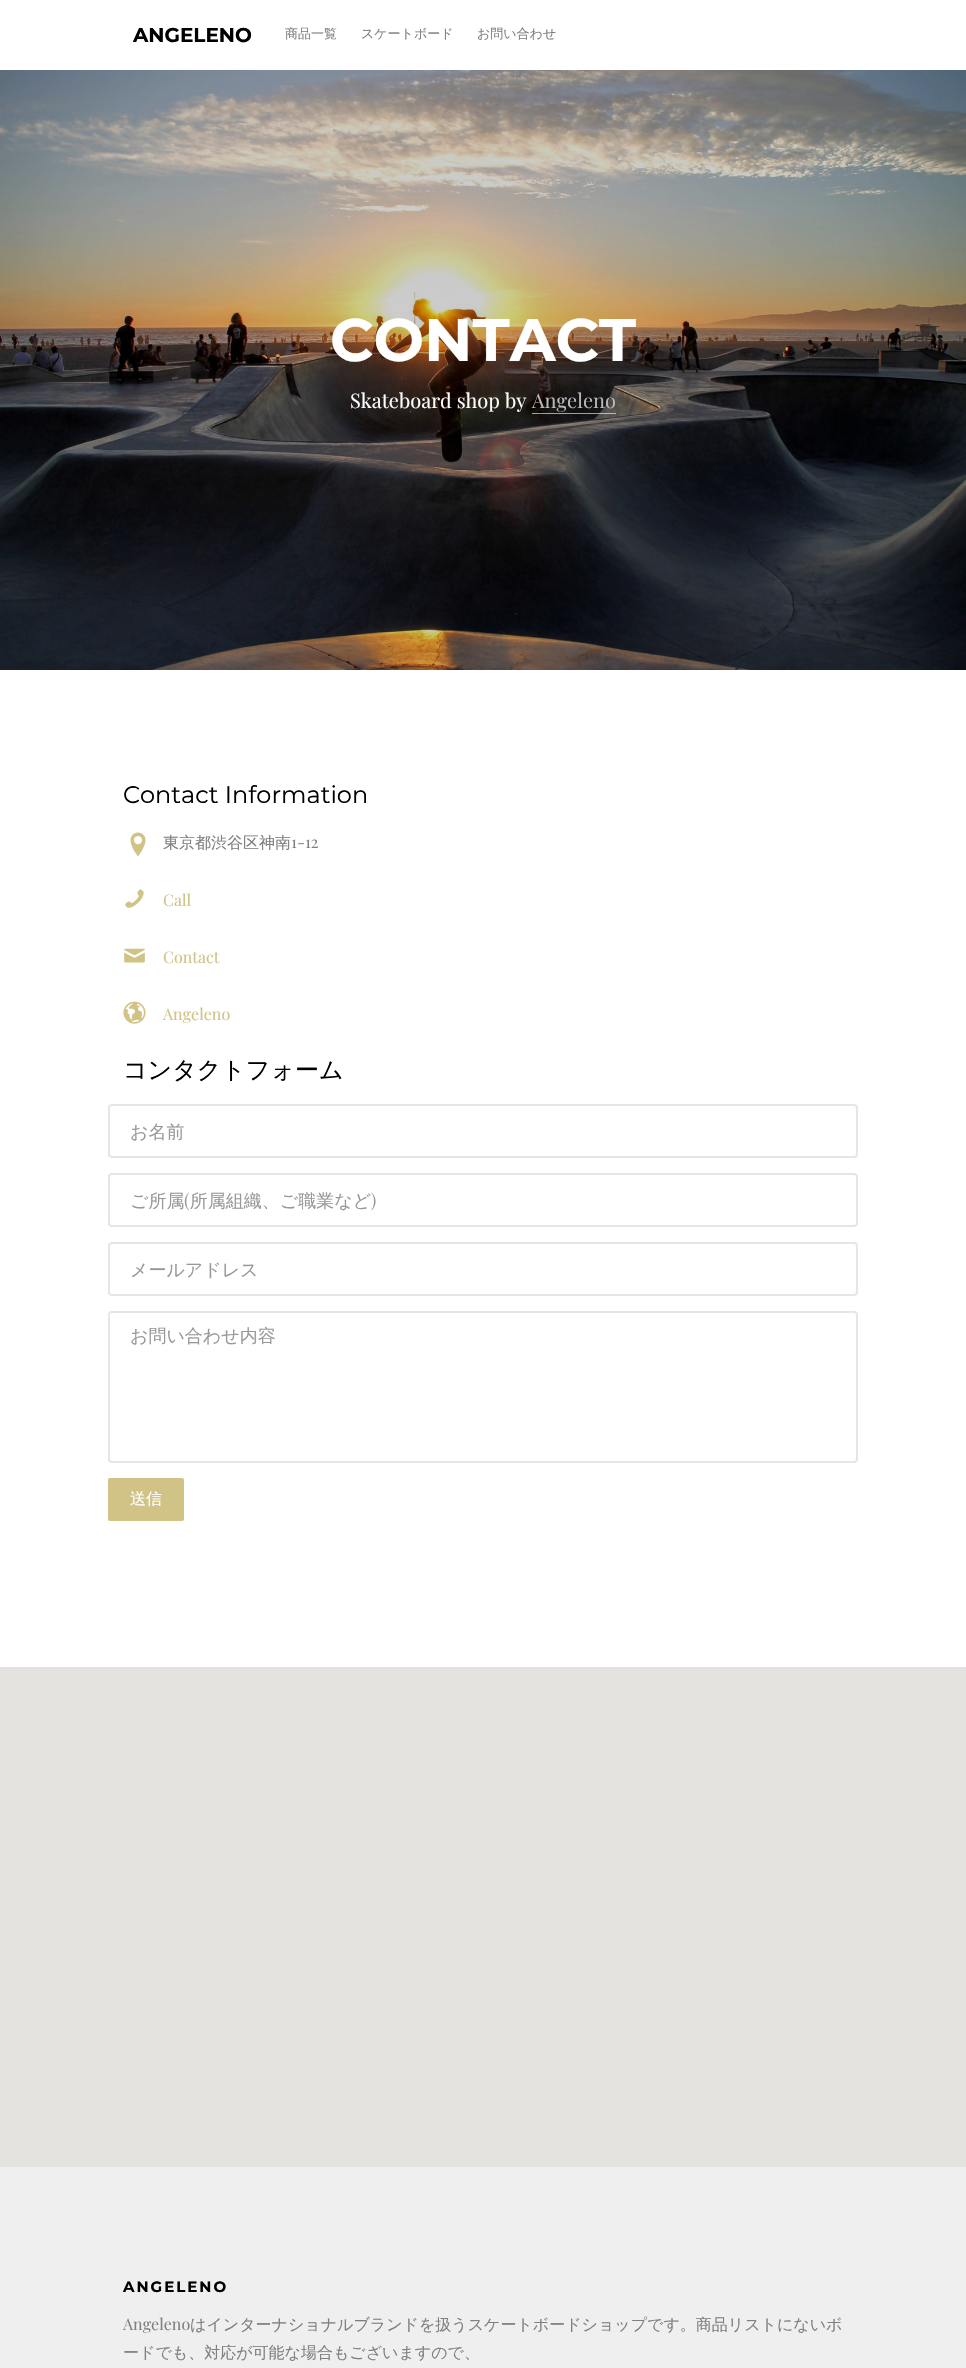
#include "include/core/SkBlurTypes.h"
#include "include/core/SkCanvas.h"
#include "include/core/SkData.h"
#include "include/core/SkFont.h"
#include "include/core/SkFontMgr.h"
#include "include/core/SkImage.h"
#include "include/core/SkMaskFilter.h"
#include "include/core/SkPaint.h"
#include "include/core/SkPathBuilder.h"
#include "include/core/SkTextBlob.h"
#include "include/effects/SkDashPathEffect.h"
#include "include/effects/SkGradientShader.h"
#include "include/utils/SkParsePath.h"

extern sk_sp<SkFontMgr> fontMgr;

void draw(SkCanvas* canvas) {
    SkPaint p;
    p.setAntiAlias(true);
    auto font = [&](const char* family, int weight, float size, bool italic = false) {
        SkFontStyle style(weight, SkFontStyle::kNormal_Width,
            italic ? SkFontStyle::kItalic_Slant : SkFontStyle::kUpright_Slant);
        SkFont result(fontMgr->matchFamilyStyle(family, style), size);
        result.setSubpixel(true);
        return result;
    };
    auto drawTracked = [&](const char* s, float x, float y, const SkFont& font, const SkPaint& ink, float letter, float word) {
        std::vector<SkGlyphID> glyphs(font.countText(s, strlen(s), SkTextEncoding::kUTF8));
        std::vector<float> xs(glyphs.size());
        font.textToGlyphs(s, strlen(s), SkTextEncoding::kUTF8, glyphs);
        font.getXPos(glyphs, xs, x);
        float extra = 0;
        for (size_t i = 0; i < glyphs.size(); i++) {
            xs[i] += extra;
            extra += letter + word * (glyphs[i] == font.unicharToGlyph(' '));
        }
        canvas->drawTextBlob(SkTextBlob::MakeFromPosHGlyphs(glyphs, xs, y, font), 0, 0, ink);
    };
    auto drawPhoto = [&](const char* path, float l, float t, float r, float b) {
        auto image = SkImages::DeferredFromEncodedData(SkData::MakeFromFileName(path));
        canvas->drawImageRect(image, SkRect::MakeLTRB(l, t, r, b), SkSamplingOptions());
    };
    canvas->clear(0xFFFFFFFF);
    auto font1 = font("Montserrat", 700, 20);
    p.setColor(0xFF000000);
    canvas->drawString("ANGELENO", 133, 42, font1, p);
    auto font2 = font("WenQuanYi Zen Hei", 500, 13);
    p.setColor(0xFF808080);
    {
        const struct { const char* s; float x, y; } items[] = {
            {"商品一覧", 285, 38},
            {"スケートボード", 361, 38},
            {"お問い合わせ", 477, 38},
        };
        for (auto [s, x, y] : items) {
            canvas->drawString(s, x, y, font2, p);
        }
    }
    drawPhoto("media/1.png", 0, 70, 966, 670);
    auto font3 = font("Montserrat", 700, 60);
    p.setColor(0xFFFFFFFF);
    canvas->drawString("CONTACT", 330, 361, font3, p);
    auto font4 = font("Playfair Display", 400, 20);
    canvas->drawString("Skateboard shop by", 350, 408, font4, p);
    p.setColor(0xFFBAB9B9);
    canvas->drawString("Angeleno", 532, 408, font4, p);
    p.setColor(0x99FFFFFF);
    canvas->drawRect(SkRect::MakeLTRB(532, 413, 616, 414), p);
    auto font5 = font("Montserrat", 400, 24);
    p.setColor(0xFF000000);
    canvas->drawString("Contact Information", 123, 803, font5, p);
    drawPhoto("media/2.png", 130, 832, 146, 857);
    auto font6 = font("WenQuanYi Zen Hei", 500, 16);
    p.setColor(0xFF808080);
    canvas->drawString("東京都渋谷区神南", 163, 848, font6, p);
    auto font7 = font("Playfair Display", 400, 16);
    canvas->drawString("1-12", 291, 848, font7, p);
    drawPhoto("media/3.png", 125, 889, 144, 908);
    p.setColor(0xFFD1C286);
    canvas->drawString("Call", 163, 906, font7, p);
    drawPhoto("media/4.png", 124, 948, 145, 963);
    canvas->drawString("Contact", 163, 963, font7, p);
    drawPhoto("media/5.png", 123, 1001, 146, 1024);
    canvas->drawString("Angeleno", 163, 1020, font7, p);
    auto font8 = font("WenQuanYi Zen Hei", 500, 24);
    p.setColor(0xFF000000);
    canvas->drawString("コンタクトフォーム", 123, 1078, font8, p);
    p.setStyle(SkPaint::kStroke_Style);
    p.setStrokeWidth(2);
    p.setColor(0xFFE6E6E6);
    canvas->drawRoundRect(SkRect::MakeLTRB(109, 1105, 857, 1157), 3, 3, p);
    auto font9 = font("WenQuanYi Zen Hei", 500, 18);
    p.setStyle(SkPaint::kFill_Style);
    p.setColor(0xFF999999);
    canvas->drawString("お名前", 130, 1138, font9, p);
    p.setStyle(SkPaint::kStroke_Style);
    p.setColor(0xFFE6E6E6);
    canvas->drawRoundRect(SkRect::MakeLTRB(109, 1174, 857, 1226), 3, 3, p);
    p.setStyle(SkPaint::kFill_Style);
    p.setColor(0xFF999999);
    canvas->drawString("ご所属 所属組織、ご職業など", 130, 1207, font9, p);
    auto font10 = font("Playfair Display", 400, 18);
    canvas->drawString("(", 184, 1207, font10, p);
    canvas->drawString(")", 371, 1207, font10, p);
    p.setStyle(SkPaint::kStroke_Style);
    p.setColor(0xFFE6E6E6);
    canvas->drawRoundRect(SkRect::MakeLTRB(109, 1243, 857, 1295), 3, 3, p);
    p.setStyle(SkPaint::kFill_Style);
    p.setColor(0xFF999999);
    canvas->drawString("メールアドレス", 130, 1276, font9, p);
    p.setStyle(SkPaint::kStroke_Style);
    p.setColor(0xFFE6E6E6);
    canvas->drawRoundRect(SkRect::MakeLTRB(109, 1312, 857, 1462), 3, 3, p);
    p.setStyle(SkPaint::kFill_Style);
    p.setColor(0xFF999999);
    canvas->drawString("お問い合わせ内容", 130, 1342, font9, p);
    p.setColor(0xFFD1C286);
    canvas->drawRoundRect(SkRect::MakeLTRB(109, 1479, 183, 1520), 1, 1, p);
    p.setStyle(SkPaint::kStroke_Style);
    canvas->drawRoundRect(SkRect::MakeLTRB(109, 1479, 183, 1520), 1, 1, p);
    p.setStyle(SkPaint::kFill_Style);
    p.setColor(0xFFFFFFFF);
    canvas->drawString("送信", 130, 1504, font6, p);
    p.setColor(0xFFE5E3DF);
    canvas->drawRect(SkRect::MakeLTRB(0, 1667, 966, 2167), p);
    p.setColor(0xFFEFEFEF);
    canvas->drawRect(SkRect::MakeLTRB(0, 2167, 966, 2368), p);
    auto font11 = font("Montserrat", 700, 15);
    p.setColor(0xFF000000);
    drawTracked("ANGELENO", 123, 2292, font11, p, 2, 0);
    p.setColor(0xFF808080);
    canvas->drawString("Angeleno", 123, 2330, font7, p);
    canvas->drawString("はインターナショナルブランドを扱うスケートボードショップです。商品リストにないボ", 190, 2330, font6, p);
    canvas->drawString("ードでも、対応が可能な場合もございますので、", 123, 2358, font6, p);
}
